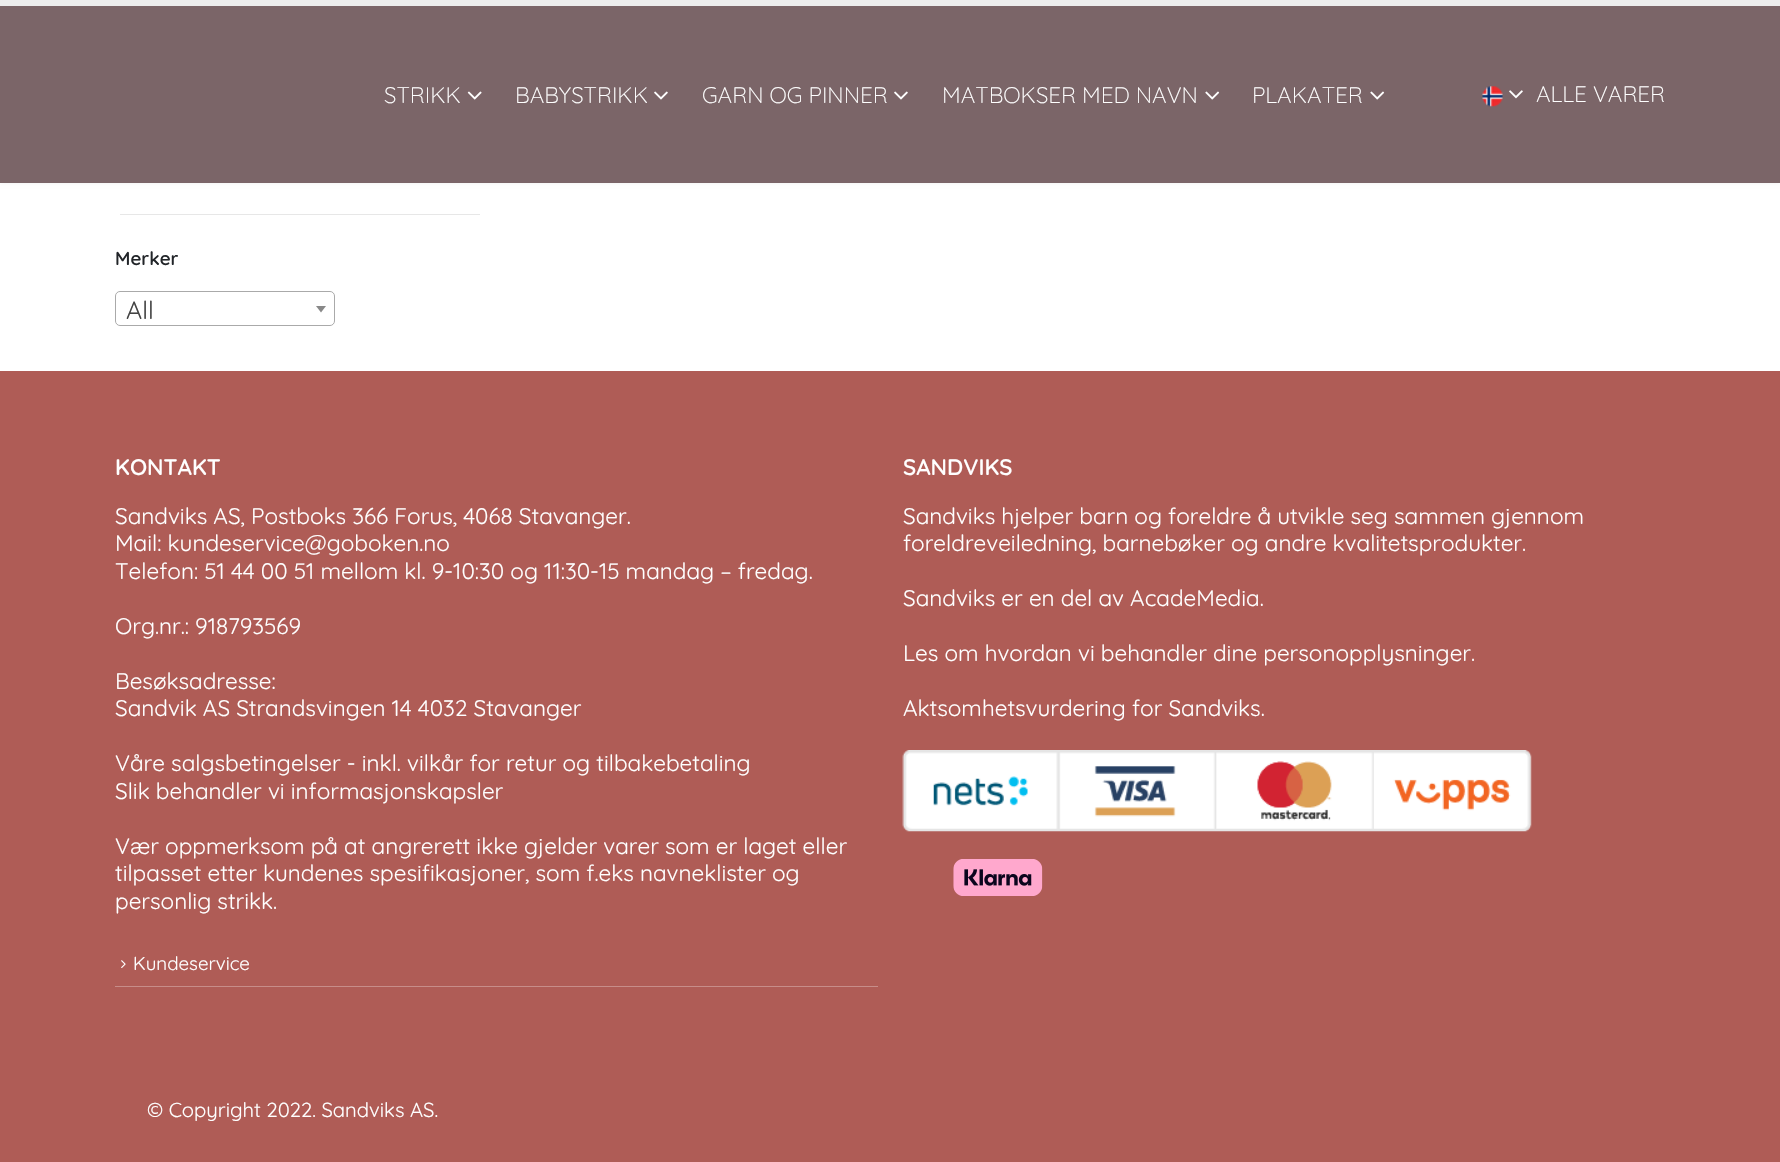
#include "include/core/SkBlurTypes.h"
#include "include/core/SkCanvas.h"
#include "include/core/SkData.h"
#include "include/core/SkFont.h"
#include "include/core/SkFontMgr.h"
#include "include/core/SkImage.h"
#include "include/core/SkMaskFilter.h"
#include "include/core/SkPaint.h"
#include "include/core/SkPathBuilder.h"
#include "include/core/SkTextBlob.h"
#include "include/effects/SkDashPathEffect.h"
#include "include/effects/SkGradientShader.h"
#include "include/utils/SkParsePath.h"

extern sk_sp<SkFontMgr> fontMgr;

void draw(SkCanvas* canvas) {
    SkPaint p;
    p.setAntiAlias(true);
    auto font = [&](const char* family, int weight, float size, bool italic = false) {
        SkFontStyle style(weight, SkFontStyle::kNormal_Width,
            italic ? SkFontStyle::kItalic_Slant : SkFontStyle::kUpright_Slant);
        SkFont result(fontMgr->matchFamilyStyle(family, style), size);
        result.setSubpixel(true);
        return result;
    };
    auto drawPhoto = [&](const char* path, float l, float t, float r, float b) {
        auto image = SkImages::DeferredFromEncodedData(SkData::MakeFromFileName(path));
        canvas->drawImageRect(image, SkRect::MakeLTRB(l, t, r, b), SkSamplingOptions());
    };
    canvas->clear(0xFFFFFFFF);
    p.setColor(0x0F000000);
    p.setMaskFilter(SkMaskFilter::MakeBlur(kNormal_SkBlurStyle, 2));
    canvas->drawRect(SkRect::MakeLTRB(0, 0, 1780, 183), p);
    p.setMaskFilter(nullptr);
    p.setColor(0xFF7B6568);
    canvas->drawRect(SkRect::MakeLTRB(0, 6, 1780, 183), p);
    p.setColor(0xFFEDEDED);
    canvas->drawRect(SkRect::MakeLTRB(0, 0, 1780, 6), p);
    auto font1 = font("Quicksand", 300, 22.5f);
    p.setColor(0xFFFFFFFF);
    canvas->drawString("STRIKK", 384, 103, font1, p);
    drawPhoto("media/1.png", 467, 91, 482, 100);
    canvas->drawString("BABYSTRIKK", 515, 103, font1, p);
    drawPhoto("media/2.png", 654, 91, 668, 100);
    canvas->drawString("GARN OG PINNER", 702, 103, font1, p);
    drawPhoto("media/2.png", 894, 91, 908, 100);
    canvas->drawString("MATBOKSER MED NAVN", 942, 103, font1, p);
    drawPhoto("media/3.png", 1205, 91, 1220, 100);
    canvas->drawString("PLAKATER", 1252, 103, font1, p);
    drawPhoto("media/3.png", 1370, 91, 1385, 100);
    drawPhoto("media/4.png", 1482, 86, 1503, 107);
    drawPhoto("media/5.png", 1509, 90, 1523, 99);
    canvas->drawString("ALLE VARER", 1536, 102, font1, p);
    p.setColor(0xFFE7E7E7);
    canvas->drawRect(SkRect::MakeLTRB(120, 214, 480, 215), p);
    auto font2 = font("Quicksand", 600, 18.75f);
    p.setColor(0xFF222529);
    canvas->drawString("Merker", 115, 265, font2, p);
    p.setStyle(SkPaint::kStroke_Style);
    p.setStrokeWidth(1);
    p.setColor(0xFFAAAAAA);
    canvas->drawRoundRect(SkRect::MakeLTRB(115.5f, 291.5f, 334.5f, 325.5f), 4.5f, 4.5f, p);
    auto font3 = font("Quicksand", 400, 25);
    p.setStyle(SkPaint::kFill_Style);
    p.setColor(0xFF444444);
    canvas->drawString("All", 126, 319, font3, p);
    p.setColor(0xFF888888);
    canvas->drawPath(SkPathBuilder().moveTo(316, 306).lineTo(326, 306).lineTo(321, 312.5f).close().detach(), p);
    p.setColor(0xFFAF5C56);
    canvas->drawRect(SkRect::MakeLTRB(0, 371, 1780, 1162), p);
    auto font4 = font("Quicksand", 600, 22.5f);
    p.setColor(0xFFFFFFFF);
    canvas->drawString("KONTAKT", 115, 475, font4, p);
    auto font5 = font("Quicksand", 400, 22.5f);
    {
        const struct { const char* s; float x, y; } items[] = {
            {"Sandviks AS, Postboks 366 Forus, 4068 Stavanger.", 115, 524},
            {"Mail: kundeservice@goboken.no", 115, 551},
            {"Telefon: 51 44 00 51 mellom kl. 9-10:30 og 11:30-15 mandag – fredag.", 115, 579},
            {"Org.nr.: 918793569", 115, 634},
            {"Besøksadresse:", 115, 689},
            {"Sandvik AS Strandsvingen 14 4032 Stavanger", 115, 716},
            {"Våre salgsbetingelser - inkl. vilkår for retur og tilbakebetaling", 115, 771},
            {"Slik behandler vi informasjonskapsler", 115, 799},
            {"Vær oppmerksom på at angrerett ikke gjelder varer som er laget eller", 115, 854},
            {"tilpasset etter kundenes spesifikasjoner, som f.eks navneklister og", 115, 881},
            {"personlig strikk.", 115, 909},
        };
        for (auto [s, x, y] : items) {
            canvas->drawString(s, x, y, font5, p);
        }
    }
    p.setColor(0xFFC78D89);
    canvas->drawRect(SkRect::MakeLTRB(115, 986, 878, 987), p);
    drawPhoto("media/6.png", 121, 960, 126, 968);
    auto font6 = font("Quicksand", 400, 18.75f);
    p.setColor(0xFFFFFFFF);
    canvas->drawString("Kundeservice", 133, 970, font6, p);
    canvas->drawString("SANDVIKS", 903, 475, font4, p);
    {
        const struct { const char* s; float x, y; } items[] = {
            {"Sandviks hjelper barn og foreldre å utvikle seg sammen gjennom", 903, 524},
            {"foreldreveiledning, barnebøker og andre kvalitetsprodukter.", 903, 551},
            {"Sandviks er en del av AcadeMedia.", 903, 606},
            {"Les om hvordan vi behandler dine personopplysninger.", 903, 661},
            {"Aktsomhetsvurdering for Sandviks.", 903, 716},
        };
        for (auto [s, x, y] : items) {
            canvas->drawString(s, x, y, font5, p);
        }
    }
    drawPhoto("media/7.png", 902, 750, 1532, 832);
    drawPhoto("media/8.png", 953, 859, 1043, 896);
    auto font7 = font("Quicksand", 400, 20.25f);
    canvas->drawString("© Copyright 2022. Sandviks AS.", 147, 1117, font7, p);
}
